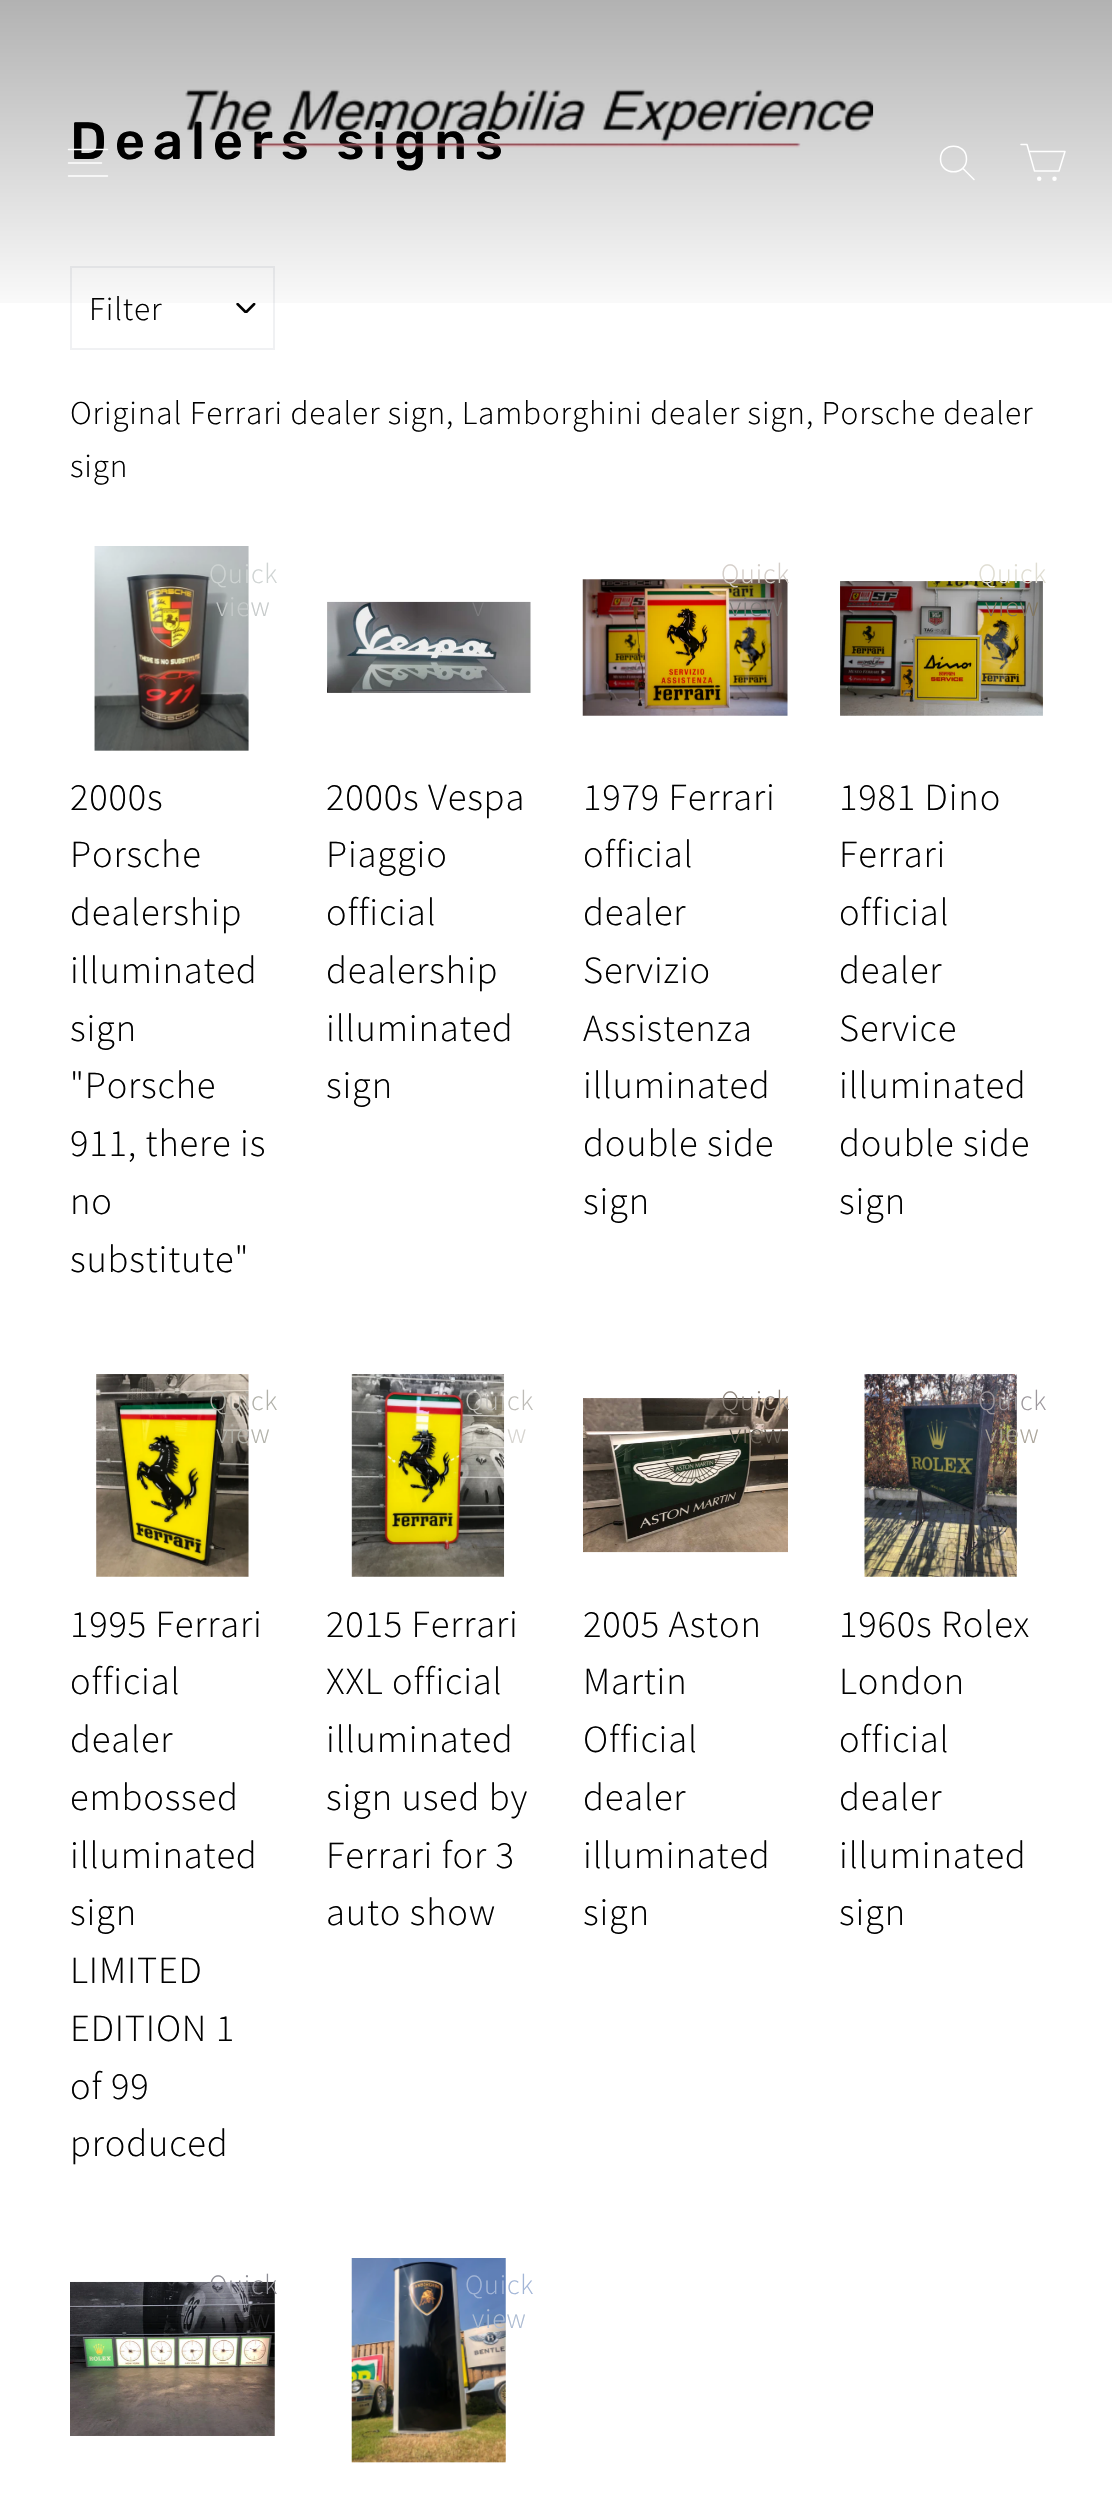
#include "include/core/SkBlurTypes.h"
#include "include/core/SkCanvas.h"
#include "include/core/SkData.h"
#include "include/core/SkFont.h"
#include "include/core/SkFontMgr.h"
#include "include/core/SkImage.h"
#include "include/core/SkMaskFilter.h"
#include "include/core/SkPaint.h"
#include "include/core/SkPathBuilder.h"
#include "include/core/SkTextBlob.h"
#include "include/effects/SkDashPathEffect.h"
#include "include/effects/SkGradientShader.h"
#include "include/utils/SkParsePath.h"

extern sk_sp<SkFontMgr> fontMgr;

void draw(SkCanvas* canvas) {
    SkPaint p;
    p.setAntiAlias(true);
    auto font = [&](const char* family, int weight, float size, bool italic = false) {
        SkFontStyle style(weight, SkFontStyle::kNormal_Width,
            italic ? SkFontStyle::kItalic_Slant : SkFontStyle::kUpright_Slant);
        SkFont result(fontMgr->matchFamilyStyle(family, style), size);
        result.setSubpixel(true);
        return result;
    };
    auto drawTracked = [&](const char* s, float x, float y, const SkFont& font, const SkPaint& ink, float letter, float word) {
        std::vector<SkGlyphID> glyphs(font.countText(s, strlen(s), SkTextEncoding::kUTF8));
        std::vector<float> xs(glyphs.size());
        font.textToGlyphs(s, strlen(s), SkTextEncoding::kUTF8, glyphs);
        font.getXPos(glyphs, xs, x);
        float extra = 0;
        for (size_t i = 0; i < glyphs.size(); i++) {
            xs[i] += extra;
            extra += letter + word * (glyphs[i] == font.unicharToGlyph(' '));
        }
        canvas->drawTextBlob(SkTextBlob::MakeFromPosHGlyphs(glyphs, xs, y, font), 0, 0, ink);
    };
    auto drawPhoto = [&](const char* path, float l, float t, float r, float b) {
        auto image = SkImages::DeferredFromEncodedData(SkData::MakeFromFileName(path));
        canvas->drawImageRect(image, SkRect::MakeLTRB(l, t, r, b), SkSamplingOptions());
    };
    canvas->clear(0xFFFFFFFF);
    auto font1 = font("Rubik", 300, 52.5f);
    p.setColor(0xFF000000);
    drawTracked("Dealers signs", 70, 159, font1, p, 7.9f, 0);
    drawPhoto("media/2.png", 236, 303, 256, 313);
    p.setStyle(SkPaint::kStroke_Style);
    p.setStrokeWidth(2);
    p.setColor(0xFFF0F1F3);
    canvas->drawRect(SkRect::MakeLTRB(71, 267, 274, 349), p);
    auto font2 = font("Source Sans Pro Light", 300, 33.25f);
    p.setStyle(SkPaint::kFill_Style);
    p.setColor(0xFF000000);
    drawTracked("Filter", 89, 320, font2, p, 0.83f, 0);
    {
        const SkColor colors[] = {0x4D000000, 0x00000000};
        const float stops[] = {0, 1};
        const SkPoint ends[] = {{557, 0}, {557, 327}};
        p.setShader(SkGradientShader::MakeLinear(ends, colors, stops, 2, SkTileMode::kClamp));
        p.setAlpha(255);
    }
    canvas->drawRect(SkRect::MakeLTRB(0, 0, 1112, 303), p);
    drawPhoto("media/1.png", 185, 89, 874, 148);
    p.setStyle(SkPaint::kStroke_Style);
    p.setStrokeWidth(1.5f);
    p.setStrokeCap(SkPaint::kRound_Cap);
    p.setStrokeJoin(SkPaint::kRound_Join);
    p.setShader(nullptr);
    p.setColor(0xFFFFFFFF);
    canvas->drawPath(SkPathBuilder().moveTo(68.5f, 149.5f).lineTo(107.5f, 149.5f).moveTo(68.5f, 163).lineTo(101.5f, 163).moveTo(68.5f, 176).lineTo(107.5f, 176).detach(), p);
    canvas->drawPath(SkPathBuilder().moveTo(966.5f, 159).cubicTo(966.5f, 176, 940.5f, 176, 940.5f, 159).cubicTo(940.5f, 142, 966.5f, 142, 966.5f, 159).close().moveTo(974, 179.5f).lineTo(963, 168.5f).detach(), p);
    canvas->drawPath(SkPathBuilder().moveTo(1029, 151.5f).lineTo(1065, 151.5f).lineTo(1059, 171).lineTo(1034.5f, 171).lineTo(1027, 144.5f).lineTo(1021, 144.5f).detach(), p);
    p.setStyle(SkPaint::kFill_Style);
    canvas->drawCircle(1039.2f, 178.8f, 1.5f, p);
    p.setStyle(SkPaint::kStroke_Style);
    p.setStrokeCap(SkPaint::kButt_Cap);
    p.setStrokeJoin(SkPaint::kMiter_Join);
    canvas->drawCircle(1039.2f, 178.8f, 1.5f, p);
    p.setStyle(SkPaint::kFill_Style);
    canvas->drawCircle(1054.5f, 178.8f, 1.5f, p);
    p.setStyle(SkPaint::kStroke_Style);
    canvas->drawCircle(1054.5f, 178.8f, 1.5f, p);
    p.setStyle(SkPaint::kFill_Style);
    p.setColor(0xFF000000);
    drawTracked("Original Ferrari dealer sign, Lamborghini dealer sign, Porsche dealer", 70, 424, font2, p, 0.83f, 0);
    drawTracked("sign", 70, 477, font2, p, 0.83f, 0);
    drawPhoto("media/3.png", 94, 546, 249, 751);
    auto font3 = font("Source Sans Pro Light", 300, 28);
    p.setColor(0xFFCFD4D3);
    drawTracked("Quick", 209, 583, font3, p, 0.83f, 0);
    p.setColor(0xFFC6CACA);
    drawTracked("view", 216, 616, font3, p, 0.83f, 0);
    auto font4 = font("Source Sans Pro Light", 300, 38.5f);
    p.setColor(0xFF000000);
    {
        const struct { const char* s; float x, y; } items[] = {
            {"2000s", 70, 810},
            {"Porsche", 70, 867},
            {"dealership", 70, 925},
            {"illuminated", 70, 983},
            {"sign", 70, 1041},
            {"\"Porsche", 70, 1098},
            {"911, there is", 70, 1156},
            {"no", 70, 1214},
            {"substitute\"", 70, 1272},
        };
        for (auto [s, x, y] : items) {
            drawTracked(s, x, y, font4, p, 0.83f, 0);
        }
    }
    drawPhoto("media/4.png", 327, 601, 531, 693);
    p.setColor(0xFF7D7C7F);
    drawTracked("v", 472, 616, font3, p, 0.83f, 0);
    p.setColor(0xFF000000);
    {
        const struct { const char* s; float x, y; } items[] = {
            {"2000s Vespa", 326, 810},
            {"Piaggio", 326, 867},
            {"official", 326, 925},
            {"dealership", 326, 983},
            {"illuminated", 326, 1041},
            {"sign", 326, 1098},
        };
        for (auto [s, x, y] : items) {
            drawTracked(s, x, y, font4, p, 0.83f, 0);
        }
    }
    drawPhoto("media/5.png", 582, 579, 788, 716);
    p.setColor(0xFFD4CEC9);
    drawTracked("Quick", 721, 583, font3, p, 0.83f, 0);
    p.setColor(0xFF7C7A77);
    drawTracked("view", 729, 616, font3, p, 0.83f, 0);
    p.setColor(0xFF000000);
    {
        const struct { const char* s; float x, y; } items[] = {
            {"1979 Ferrari", 583, 810},
            {"official", 583, 867},
            {"dealer", 583, 925},
            {"Servizio", 583, 983},
            {"Assistenza", 583, 1041},
            {"illuminated", 583, 1098},
            {"double side", 583, 1156},
            {"sign", 583, 1214},
        };
        for (auto [s, x, y] : items) {
            drawTracked(s, x, y, font4, p, 0.83f, 0);
        }
    }
    drawPhoto("media/6.png", 840, 581, 1043, 716);
    p.setColor(0xFFDFDDD2);
    drawTracked("Quick", 978, 583, font3, p, 0.83f, 0);
    p.setColor(0xFF81755C);
    drawTracked("view", 985, 616, font3, p, 0.83f, 0);
    p.setColor(0xFF000000);
    {
        const struct { const char* s; float x, y; } items[] = {
            {"1981 Dino", 839, 810},
            {"Ferrari", 839, 867},
            {"official", 839, 925},
            {"dealer", 839, 983},
            {"Service", 839, 1041},
            {"illuminated", 839, 1098},
            {"double side", 839, 1156},
            {"sign", 839, 1214},
        };
        for (auto [s, x, y] : items) {
            drawTracked(s, x, y, font4, p, 0.83f, 0);
        }
    }
    drawPhoto("media/7.png", 96, 1374, 249, 1577);
    p.setColor(0xFFB1B1A9);
    drawTracked("Quick", 209, 1410, font3, p, 0.83f, 0);
    drawTracked("view", 216, 1443, font3, p, 0.83f, 0);
    p.setColor(0xFF000000);
    {
        const struct { const char* s; float x, y; } items[] = {
            {"1995 Ferrari", 70, 1637},
            {"official", 70, 1694},
            {"dealer", 70, 1752},
            {"embossed", 70, 1810},
            {"illuminated", 70, 1868},
            {"sign", 70, 1925},
            {"LIMITED", 70, 1983},
            {"EDITION 1", 70, 2041},
            {"of 99", 70, 2099},
            {"produced", 70, 2156},
        };
        for (auto [s, x, y] : items) {
            drawTracked(s, x, y, font4, p, 0.83f, 0);
        }
    }
    drawPhoto("media/8.png", 351, 1374, 505, 1577);
    p.setColor(0xFFBEBCB7);
    drawTracked("Quick", 465, 1410, font3, p, 0.83f, 0);
    p.setColor(0xFFD6D4CF);
    drawTracked("w", 507, 1443, font3, p, 0.83f, 0);
    p.setColor(0xFF000000);
    {
        const struct { const char* s; float x, y; } items[] = {
            {"2015 Ferrari", 326, 1637},
            {"XXL official", 326, 1694},
            {"illuminated", 326, 1752},
            {"sign used by", 326, 1810},
            {"Ferrari for 3", 326, 1868},
            {"auto show", 326, 1925},
        };
        for (auto [s, x, y] : items) {
            drawTracked(s, x, y, font4, p, 0.83f, 0);
        }
    }
    drawPhoto("media/9.png", 583, 1398, 788, 1553);
    p.setColor(0xFF8D847B);
    drawTracked("Quick", 721, 1410, font3, p, 0.83f, 0);
    p.setColor(0xFF645D53);
    drawTracked("view", 729, 1443, font3, p, 0.83f, 0);
    p.setColor(0xFF000000);
    {
        const struct { const char* s; float x, y; } items[] = {
            {"2005 Aston", 583, 1637},
            {"Martin", 583, 1694},
            {"Official", 583, 1752},
            {"dealer", 583, 1810},
            {"illuminated", 583, 1868},
            {"sign", 583, 1925},
        };
        for (auto [s, x, y] : items) {
            drawTracked(s, x, y, font4, p, 0.83f, 0);
        }
    }
    drawPhoto("media/10.png", 864, 1374, 1017, 1577);
    p.setColor(0xFF9D989D);
    drawTracked("Quick", 978, 1410, font3, p, 0.83f, 0);
    p.setColor(0xFFAAA499);
    drawTracked("view", 985, 1443, font3, p, 0.83f, 0);
    p.setColor(0xFF000000);
    {
        const struct { const char* s; float x, y; } items[] = {
            {"1960s Rolex", 839, 1637},
            {"London", 839, 1694},
            {"official", 839, 1752},
            {"dealer", 839, 1810},
            {"illuminated", 839, 1868},
            {"sign", 839, 1925},
        };
        for (auto [s, x, y] : items) {
            drawTracked(s, x, y, font4, p, 0.83f, 0);
        }
    }
    drawPhoto("media/11.png", 70, 2281, 275, 2436);
    p.setColor(0xFF8D8D94);
    drawTracked("Quick", 209, 2294, font3, p, 0.83f, 0);
    p.setColor(0xFF242426);
    drawTracked("w", 251, 2328, font3, p, 0.83f, 0);
    drawPhoto("media/12.png", 351, 2258, 506, 2463);
    p.setColor(0xFFA3B6D7);
    drawTracked("Quick", 465, 2294, font3, p, 0.83f, 0);
    p.setColor(0xFFACBBD2);
    drawTracked("view", 472, 2328, font3, p, 0.83f, 0);
}
